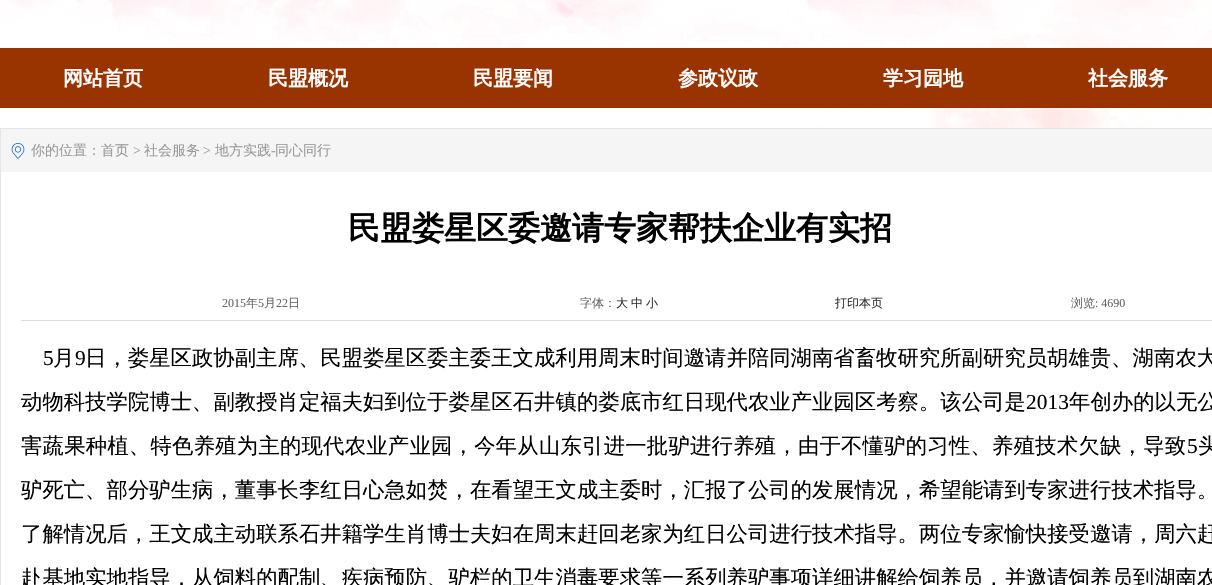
#include "include/core/SkBlurTypes.h"
#include "include/core/SkCanvas.h"
#include "include/core/SkData.h"
#include "include/core/SkFont.h"
#include "include/core/SkFontMgr.h"
#include "include/core/SkImage.h"
#include "include/core/SkMaskFilter.h"
#include "include/core/SkPaint.h"
#include "include/core/SkPathBuilder.h"
#include "include/core/SkTextBlob.h"
#include "include/effects/SkDashPathEffect.h"
#include "include/effects/SkGradientShader.h"
#include "include/utils/SkParsePath.h"

extern sk_sp<SkFontMgr> fontMgr;

void draw(SkCanvas* canvas) {
    SkPaint p;
    p.setAntiAlias(true);
    auto font = [&](const char* family, int weight, float size, bool italic = false) {
        SkFontStyle style(weight, SkFontStyle::kNormal_Width,
            italic ? SkFontStyle::kItalic_Slant : SkFontStyle::kUpright_Slant);
        SkFont result(fontMgr->matchFamilyStyle(family, style), size);
        result.setSubpixel(true);
        return result;
    };
    auto drawTracked = [&](const char* s, float x, float y, const SkFont& font, const SkPaint& ink, float letter, float word) {
        std::vector<SkGlyphID> glyphs(font.countText(s, strlen(s), SkTextEncoding::kUTF8));
        std::vector<float> xs(glyphs.size());
        font.textToGlyphs(s, strlen(s), SkTextEncoding::kUTF8, glyphs);
        font.getXPos(glyphs, xs, x);
        float extra = 0;
        for (size_t i = 0; i < glyphs.size(); i++) {
            xs[i] += extra;
            extra += letter + word * (glyphs[i] == font.unicharToGlyph(' '));
        }
        canvas->drawTextBlob(SkTextBlob::MakeFromPosHGlyphs(glyphs, xs, y, font), 0, 0, ink);
    };
    auto drawPhoto = [&](const char* path, float l, float t, float r, float b) {
        auto image = SkImages::DeferredFromEncodedData(SkData::MakeFromFileName(path));
        canvas->drawImageRect(image, SkRect::MakeLTRB(l, t, r, b), SkSamplingOptions());
    };
    canvas->clear(0xFFFFFFFF);
    drawPhoto("media/1.png", 0, 0, 1212, 128);
    p.setColor(0xFF993300);
    canvas->drawRect(SkRect::MakeLTRB(0, 48, 1212, 108), p);
    auto font1 = font("WenQuanYi Zen Hei", 700, 20);
    p.setColor(0xFFFFFFFF);
    {
        const struct { const char* s; float x, y; } items[] = {
            {"网站首页", 63, 85},
            {"民盟概况", 268, 85},
            {"民盟要闻", 473, 85},
            {"参政议政", 678, 85},
            {"学习园地", 883, 85},
            {"社会服务", 1088, 85},
        };
        for (auto [s, x, y] : items) {
            canvas->drawString(s, x, y, font1, p);
        }
    }
    p.setStyle(SkPaint::kStroke_Style);
    p.setStrokeWidth(1);
    p.setColor(0xFFE5E5E5);
    canvas->drawRect(SkRect::MakeLTRB(0.5f, 128.5f, 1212.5f, 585.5f), p);
    p.setStyle(SkPaint::kFill_Style);
    p.setColor(0xFFF5F5F5);
    canvas->drawRect(SkRect::MakeLTRB(1, 129, 1212, 172), p);
    drawPhoto("media/2.png", 11, 143, 25, 159);
    auto font2 = font("WenQuanYi Zen Hei", 500, 14);
    p.setColor(0xFF999999);
    canvas->drawString("你的位置：首页", 31, 155, font2, p);
    auto font3 = font("Liberation Serif", 400, 14);
    canvas->drawString(">", 133, 155, font3, p);
    canvas->drawString("社会服务", 144, 155, font2, p);
    canvas->drawString(">", 203, 155, font3, p);
    canvas->drawString("地方实践", 215, 155, font2, p);
    canvas->drawString("-", 271, 155, font3, p);
    canvas->drawString("同心同行", 275, 155, font2, p);
    auto font4 = font("WenQuanYi Zen Hei", 700, 32);
    p.setColor(0xFF000000);
    canvas->drawString("民盟娄星区委邀请专家帮扶企业有实招", 348, 239, font4, p);
    p.setColor(0xFFDEDEDC);
    canvas->drawRect(SkRect::MakeLTRB(21, 320, 1212, 321), p);
    auto font5 = font("Liberation Serif", 400, 12);
    p.setColor(0xFF666666);
    canvas->drawString("2015", 222, 307, font5, p);
    auto font6 = font("WenQuanYi Zen Hei", 500, 12);
    canvas->drawString("年", 246, 307, font6, p);
    canvas->drawString("5", 258, 307, font5, p);
    canvas->drawString("月", 264, 307, font6, p);
    canvas->drawString("22", 276, 307, font5, p);
    canvas->drawString("日", 288, 307, font6, p);
    canvas->drawString("字体：", 580, 307, font6, p);
    p.setColor(0xFF333333);
    {
        const struct { const char* s; float x, y; } items[] = {
            {"大", 616, 307},
            {"中", 631, 307},
            {"小", 646, 307},
            {"打印本页", 835, 307},
        };
        for (auto [s, x, y] : items) {
            canvas->drawString(s, x, y, font6, p);
        }
    }
    p.setColor(0xFF666666);
    canvas->drawString("浏览", 1071, 307, font6, p);
    canvas->drawString(": 4690", 1095, 307, font5, p);
    auto font7 = font("Liberation Serif", 400, 21.33f);
    p.setColor(0xFF000000);
    drawTracked("5", 43, 365, font7, p, 0.05f, 0);
    auto font8 = font("WenQuanYi Zen Hei", 500, 21.33f);
    drawTracked("月", 53, 365, font8, p, 0.05f, 0);
    drawTracked("9", 75, 365, font7, p, 0.05f, 0);
    drawTracked("日，娄星区政协副主席、民盟娄星区委主委王文成利用周末时间邀请并陪同湖南省畜牧研究所副研究员胡雄贵、湖南农大", 85, 365, font8, p, 0.05f, 0);
    drawTracked("动物科技学院博士、副教授肖定福夫妇到位于娄星区石井镇的娄底市红日现代农业产业园区考察。该公司是", 21, 409, font8, p, 0.05f, 0);
    drawTracked("2013", 1026, 409, font7, p, 0.05f, 0);
    drawTracked("年创办的以无公", 1069, 409, font8, p, 0.05f, 0);
    drawTracked("害蔬果种植、特色养殖为主的现代农业产业园，今年从山东引进一批驴进行养殖，由于不懂驴的习性、养殖技术欠缺，导致", 21, 453, font8, p, 0.25f, 0);
    drawTracked("5", 1187, 453, font7, p, 0.25f, 0);
    drawTracked("头", 1198, 453, font8, p, 0.25f, 0);
    {
        const struct { const char* s; float x, y; } items[] = {
            {"驴死亡、部分驴生病，董事长李红日心急如焚，在看望王文成主委时，汇报了公司的发展情况，希望能请到专家进行技术指导。", 21, 497},
            {"了解情况后，王文成主动联系石井籍学生肖博士夫妇在周末赶回老家为红日公司进行技术指导。两位专家愉快接受邀请，周六赶", 21, 541},
            {"赴基地实地指导，从饲料的配制、疾病预防、驴栏的卫生消毒要求等一系列养驴事项详细讲解给饲养员，并邀请饲养员到湖南农", 21, 585},
        };
        for (auto [s, x, y] : items) {
            drawTracked(s, x, y, font8, p, 0.05f, 0);
        }
    }
}
